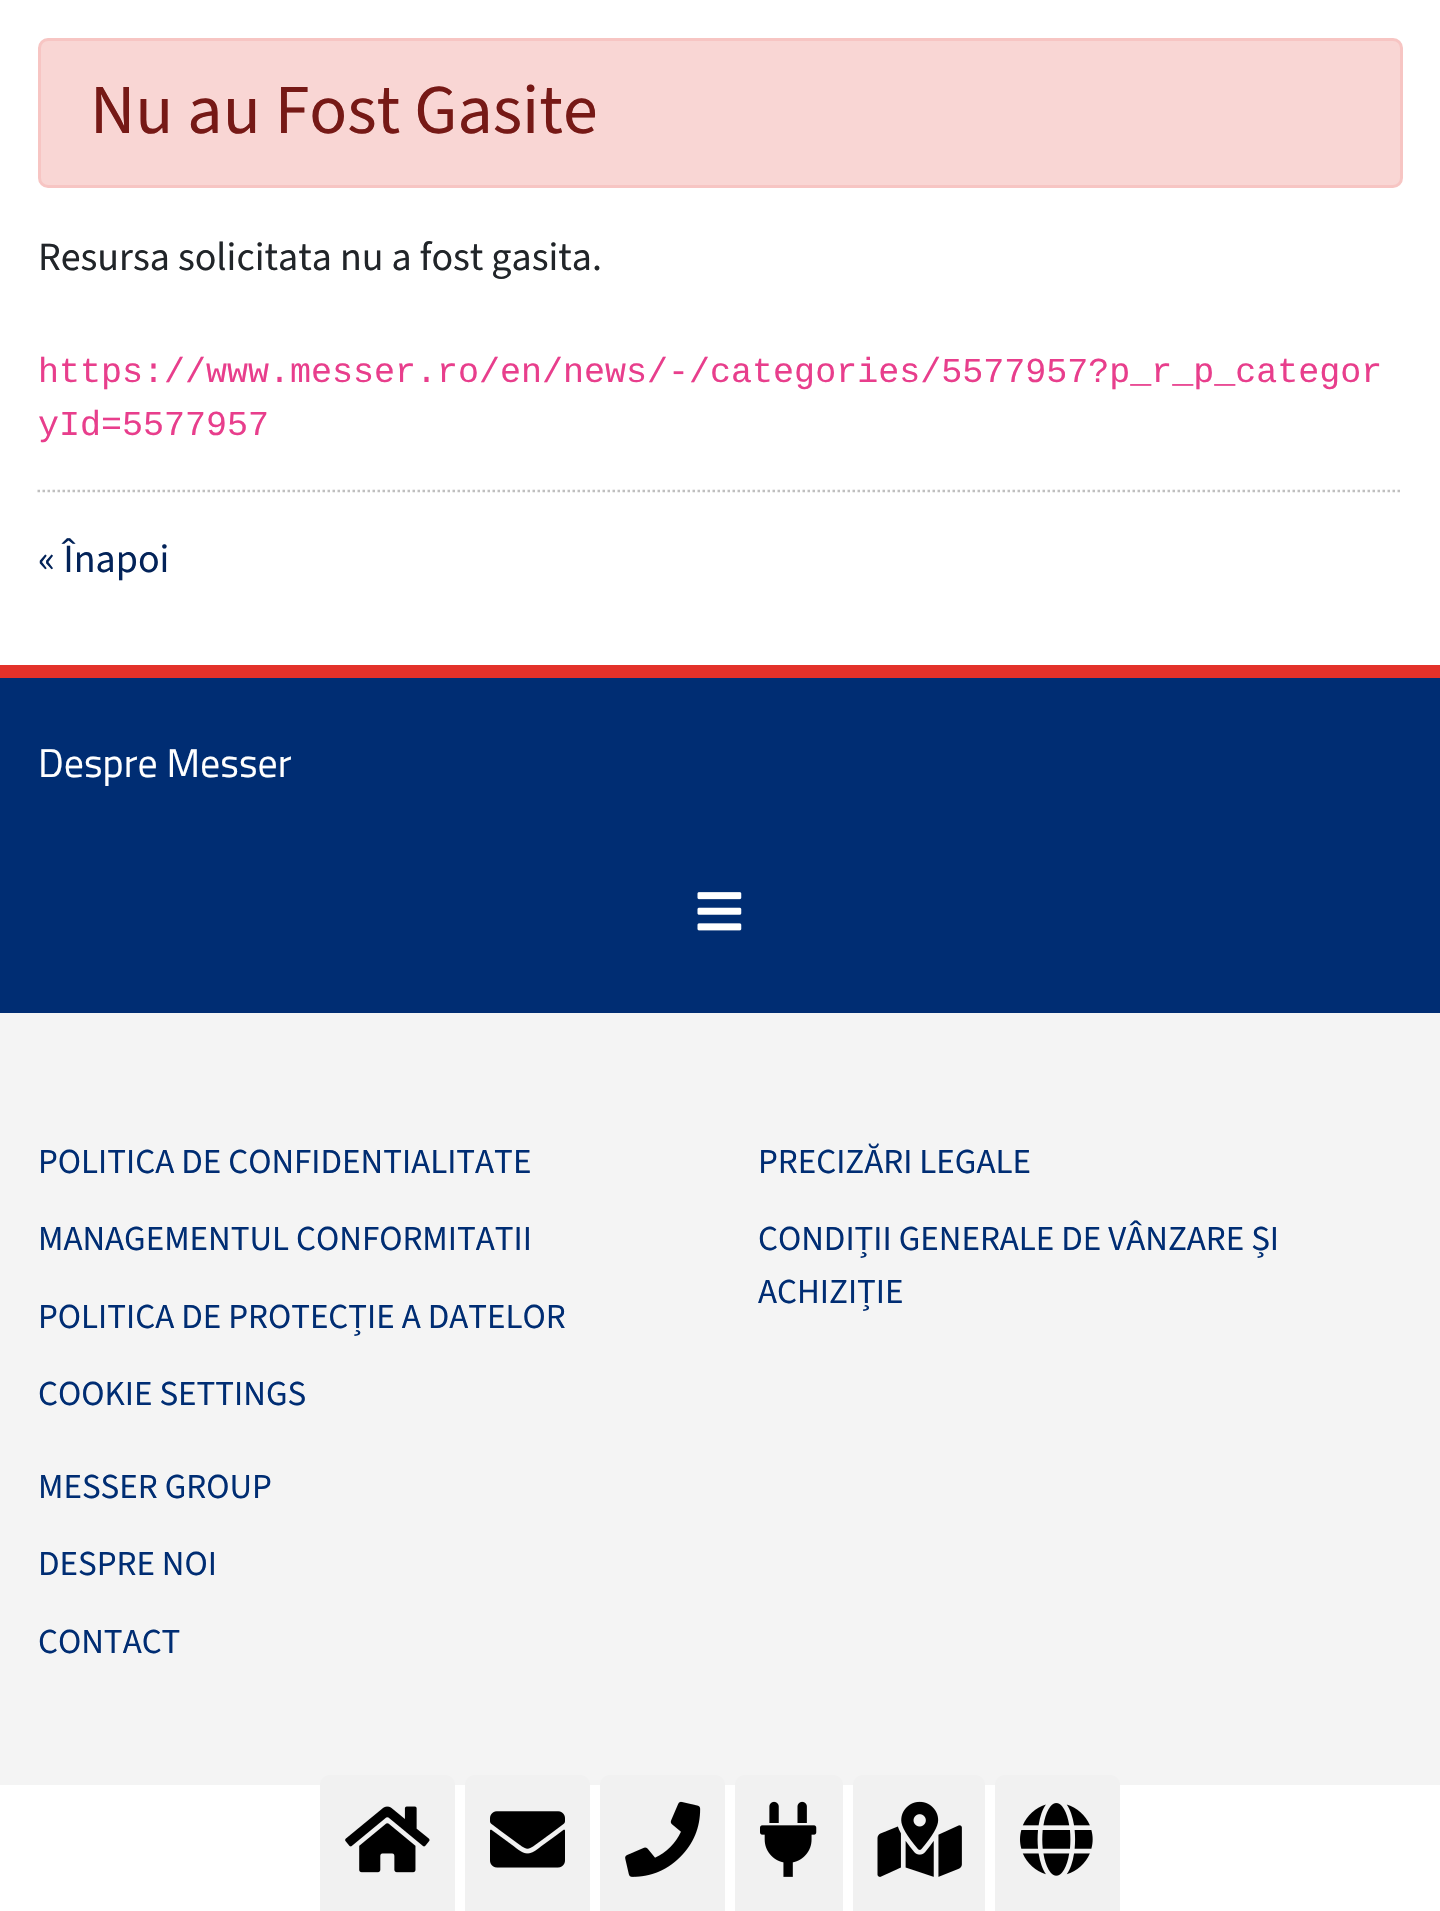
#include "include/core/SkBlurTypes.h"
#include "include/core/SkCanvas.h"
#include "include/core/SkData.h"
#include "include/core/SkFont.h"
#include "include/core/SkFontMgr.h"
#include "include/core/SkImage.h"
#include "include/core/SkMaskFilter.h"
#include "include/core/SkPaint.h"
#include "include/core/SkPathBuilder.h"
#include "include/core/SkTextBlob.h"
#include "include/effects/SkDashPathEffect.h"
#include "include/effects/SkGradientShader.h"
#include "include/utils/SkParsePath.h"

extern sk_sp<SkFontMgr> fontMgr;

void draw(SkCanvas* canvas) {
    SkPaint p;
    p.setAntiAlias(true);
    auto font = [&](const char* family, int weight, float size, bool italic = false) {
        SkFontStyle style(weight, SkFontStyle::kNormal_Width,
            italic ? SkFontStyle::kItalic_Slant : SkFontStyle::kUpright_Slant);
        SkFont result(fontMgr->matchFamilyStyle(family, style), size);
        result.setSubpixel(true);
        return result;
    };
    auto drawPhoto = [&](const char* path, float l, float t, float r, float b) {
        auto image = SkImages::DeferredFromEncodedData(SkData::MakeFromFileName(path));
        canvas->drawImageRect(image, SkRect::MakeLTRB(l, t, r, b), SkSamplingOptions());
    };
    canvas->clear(0xFFFFFFFF);
    p.setColor(0xFFF9D6D4);
    canvas->drawRoundRect(SkRect::MakeLTRB(39.5f, 39.5f, 1401.5f, 186.5f), 8.5f, 8.5f, p);
    p.setStyle(SkPaint::kStroke_Style);
    p.setStrokeWidth(3);
    p.setColor(0xFFF7C5C3);
    canvas->drawRoundRect(SkRect::MakeLTRB(39.5f, 39.5f, 1401.5f, 186.5f), 8.5f, 8.5f, p);
    auto font1 = font("Source Sans 3", 400, 70);
    p.setStyle(SkPaint::kFill_Style);
    p.setColor(0xFF761916);
    canvas->drawString("Nu au Fost Gasite", 90, 133, font1, p);
    auto font2 = font("Source Sans 3", 400, 40);
    p.setColor(0xFF212529);
    canvas->drawString("Resursa solicitata nu a fost gasita.", 38, 270, font2, p);
    auto font3 = font("Liberation Mono", 400, 35);
    p.setColor(0xFFE83E8C);
    canvas->drawString("https://www.messer.ro/en/news/-/categories/5577957?p_r_p_categor", 38, 382, font3, p);
    canvas->drawString("yId=5577957", 38, 435, font3, p);
    p.setStyle(SkPaint::kStroke_Style);
    p.setStrokeWidth(2.5f);
    p.setColor(0xFFBFBFBF);
    p.setPathEffect(SkDashPathEffect::Make({{2.5f, 2.5f}}, 0));
    canvas->drawPath(SkPathBuilder().moveTo(37.5f, 491).lineTo(1402.5f, 491).detach(), p);
    p.setPathEffect(nullptr);
    p.setStyle(SkPaint::kFill_Style);
    p.setColor(0xFF032359);
    canvas->drawString("« Înapoi", 38, 572, font2, p);
    p.setColor(0xFF002D73);
    canvas->drawRect(SkRect::MakeLTRB(0, 678, 1440, 1013), p);
    p.setColor(0xFFE3312A);
    canvas->drawRect(SkRect::MakeLTRB(0, 665, 1440, 678), p);
    auto font4 = font("Titillium Web", 400, 40);
    p.setColor(0xFFFFFFFF);
    canvas->drawString("Despre Messer", 38, 777, font4, p);
    drawPhoto("media/1.png", 697, 892, 742, 931);
    p.setColor(0xFFF4F4F4);
    canvas->drawRect(SkRect::MakeLTRB(0, 1013, 1440, 1785), p);
    auto font5 = font("Source Sans 3", 400, 35);
    p.setColor(0xFF002D73);
    {
        const struct { const char* s; float x, y; } items[] = {
            {"POLITICA DE CONFIDENTIALITATE", 38, 1173},
            {"MANAGEMENTUL CONFORMITATII", 38, 1250},
            {"POLITICA DE PROTECȚIE A DATELOR", 38, 1328},
            {"COOKIE SETTINGS", 38, 1405},
            {"PRECIZĂRI LEGALE", 758, 1173},
            {"CONDIȚII GENERALE DE VÂNZARE ȘI", 758, 1250},
            {"ACHIZIȚIE", 758, 1303},
            {"MESSER GROUP", 38, 1498},
            {"DESPRE NOI", 38, 1575},
            {"CONTACT", 38, 1653},
        };
        for (auto [s, x, y] : items) {
            canvas->drawString(s, x, y, font5, p);
        }
    }
    p.setColor(0xFFF1F1F1);
    canvas->drawPath(SkPathBuilder().moveTo(330, 1775).lineTo(445, 1775).cubicTo(450.5f, 1775, 455, 1779.5f, 455, 1785).lineTo(455, 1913).lineTo(320, 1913).lineTo(320, 1785).cubicTo(320, 1779.5f, 324.5f, 1775, 330, 1775).close().detach(), p);
    drawPhoto("media/2.png", 345, 1806, 430, 1873);
    canvas->drawPath(SkPathBuilder().moveTo(475, 1775).lineTo(580, 1775).cubicTo(585.5f, 1775, 590, 1779.5f, 590, 1785).lineTo(590, 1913).lineTo(465, 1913).lineTo(465, 1785).cubicTo(465, 1779.5f, 469.5f, 1775, 475, 1775).close().detach(), p);
    drawPhoto("media/3.png", 490, 1811, 565, 1868);
    canvas->drawPath(SkPathBuilder().moveTo(610, 1775).lineTo(715, 1775).cubicTo(720.5f, 1775, 725, 1779.5f, 725, 1785).lineTo(725, 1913).lineTo(600, 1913).lineTo(600, 1785).cubicTo(600, 1779.5f, 604.5f, 1775, 610, 1775).close().detach(), p);
    drawPhoto("media/4.png", 625, 1801, 701, 1877);
    canvas->drawPath(SkPathBuilder().moveTo(745, 1775).lineTo(833, 1775).cubicTo(838.5f, 1775, 843, 1779.5f, 843, 1785).lineTo(843, 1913).lineTo(735, 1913).lineTo(735, 1785).cubicTo(735, 1779.5f, 739.5f, 1775, 745, 1775).close().detach(), p);
    drawPhoto("media/5.png", 760, 1801, 817, 1877);
    canvas->drawPath(SkPathBuilder().moveTo(863, 1775).lineTo(975, 1775).cubicTo(980.5f, 1775, 985, 1779.5f, 985, 1785).lineTo(985, 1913).lineTo(853, 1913).lineTo(853, 1785).cubicTo(853, 1779.5f, 857.5f, 1775, 863, 1775).close().detach(), p);
    drawPhoto("media/6.png", 877, 1801, 962, 1877);
    canvas->drawPath(SkPathBuilder().moveTo(1005, 1775).lineTo(1110, 1775).cubicTo(1115.5f, 1775, 1120, 1779.5f, 1120, 1785).lineTo(1120, 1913).lineTo(995, 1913).lineTo(995, 1785).cubicTo(995, 1779.5f, 999.5f, 1775, 1005, 1775).close().detach(), p);
    drawPhoto("media/7.png", 1020, 1803, 1093, 1876);
}
